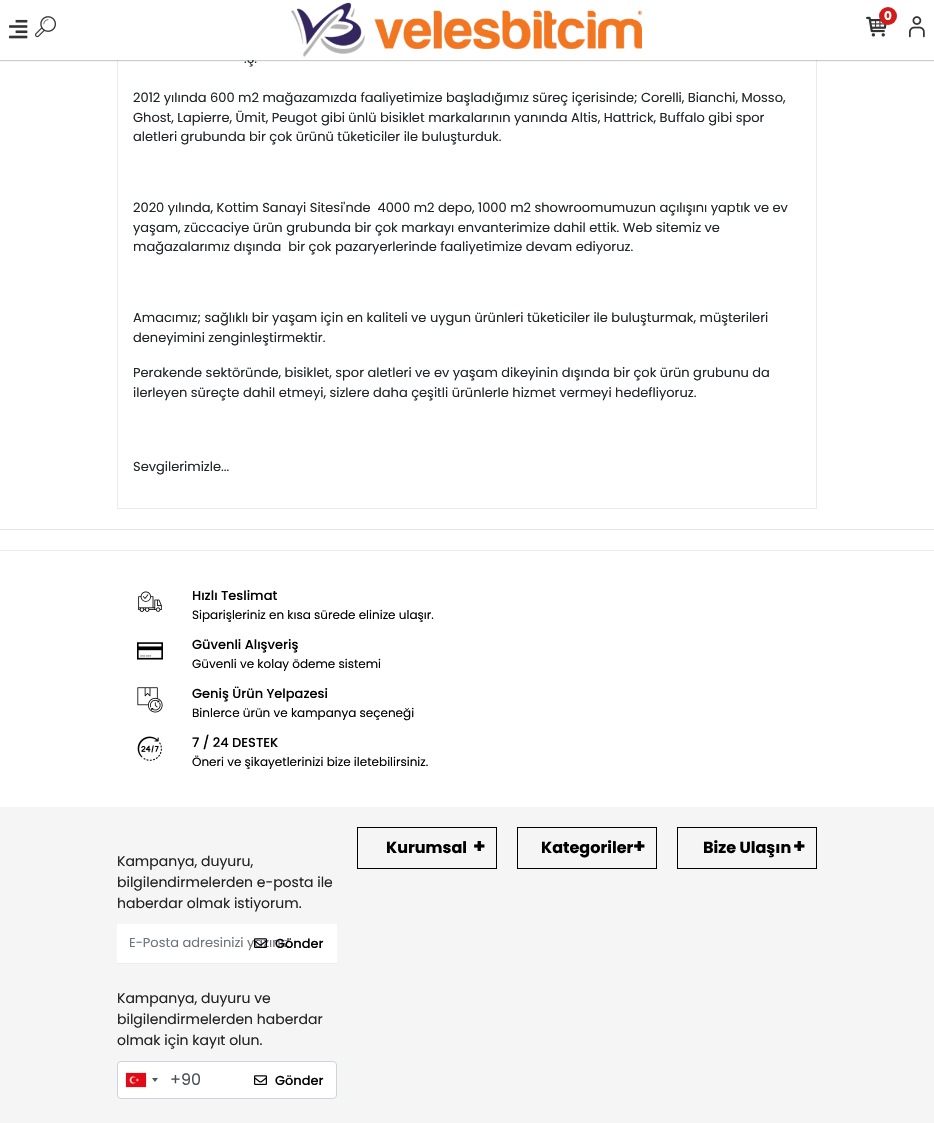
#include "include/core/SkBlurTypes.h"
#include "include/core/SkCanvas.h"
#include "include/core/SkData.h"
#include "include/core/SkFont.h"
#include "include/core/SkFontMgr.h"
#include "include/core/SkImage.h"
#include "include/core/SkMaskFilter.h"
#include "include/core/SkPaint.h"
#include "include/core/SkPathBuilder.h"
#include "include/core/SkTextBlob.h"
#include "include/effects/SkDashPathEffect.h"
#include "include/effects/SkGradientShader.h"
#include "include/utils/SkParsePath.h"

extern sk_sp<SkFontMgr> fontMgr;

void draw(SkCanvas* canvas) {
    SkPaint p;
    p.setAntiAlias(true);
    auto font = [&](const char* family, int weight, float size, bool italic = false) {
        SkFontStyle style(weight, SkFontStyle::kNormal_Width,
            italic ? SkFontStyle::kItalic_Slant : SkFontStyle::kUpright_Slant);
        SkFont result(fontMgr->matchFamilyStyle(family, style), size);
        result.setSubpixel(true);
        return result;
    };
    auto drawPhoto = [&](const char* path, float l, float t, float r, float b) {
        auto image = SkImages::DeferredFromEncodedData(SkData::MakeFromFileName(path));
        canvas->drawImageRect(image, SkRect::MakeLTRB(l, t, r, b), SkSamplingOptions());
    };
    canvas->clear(0xFFFFFFFF);
    p.setStyle(SkPaint::kStroke_Style);
    p.setStrokeWidth(1);
    p.setColor(0xFFEBEBEB);
    canvas->drawRect(SkRect::MakeLTRB(117.5f, -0.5f, 816.5f, 508.5f), p);
    p.setStyle(SkPaint::kFill_Style);
    p.setColor(0x33000000);
    p.setMaskFilter(SkMaskFilter::MakeBlur(kNormal_SkBlurStyle, 0.5f));
    canvas->drawRect(SkRect::MakeLTRB(0, 1, 934, 61), p);
    p.setMaskFilter(nullptr);
    auto font1 = font("Poppins", 400, 13);
    p.setColor(0xFF212529);
    canvas->drawString(".Ş.", 244, 63, font1, p);
    p.setColor(0xFFFFFFFF);
    canvas->drawRect(SkRect::MakeLTRB(0, 0, 934, 60), p);
    drawPhoto("media/1.png", 9, 19, 28, 39);
    drawPhoto("media/2.png", 35, 16, 56, 38);
    drawPhoto("media/3.png", 291, 2, 642, 57);
    drawPhoto("media/4.png", 866, 16, 887, 37);
    p.setColor(0xFFD21C1C);
    canvas->drawCircle(888, 16, 9, p);
    auto font2 = font("Poppins", 700, 12);
    p.setColor(0xFFFFFFFF);
    canvas->drawString("0", 884, 20, font2, p);
    drawPhoto("media/5.png", 909, 16, 925, 38);
    p.setColor(0xFF212529);
    {
        const struct { const char* s; float x, y; } items[] = {
            {"2012 yılında 600 m2 mağazamızda faaliyetimize başladığımız süreç içerisinde; Corelli, Bianchi, Mosso,", 133, 102},
            {"Ghost, Lapierre, Ümit, Peugot gibi ünlü bisiklet markalarının yanında Altis, Hattrick, Buffalo gibi spor", 133, 122},
            {"aletleri grubunda bir çok ürünü tüketiciler ile buluşturduk.", 133, 141},
            {"2020 yılında, Kottim Sanayi Sitesi'nde  4000 m2 depo, 1000 m2 showroomumuzun açılışını yaptık ve ev", 133, 212},
            {"yaşam, züccaciye ürün grubunda bir çok markayı envanterimize dahil ettik. Web sitemiz ve", 133, 232},
            {"mağazalarımız dışında  bir çok pazaryerlerinde faaliyetimize devam ediyoruz.", 133, 251},
            {"Amacımız; sağlıklı bir yaşam için en kaliteli ve uygun ürünleri tüketiciler ile buluşturmak, müşterileri", 133, 322},
            {"deneyimini zenginleştirmektir.", 133, 342},
            {"Perakende sektöründe, bisiklet, spor aletleri ve ev yaşam dikeyinin dışında bir çok ürün grubunu da", 133, 377},
            {"ilerleyen süreçte dahil etmeyi, sizlere daha çeşitli ürünlerle hizmet vermeyi hedefliyoruz.", 133, 397},
            {"Sevgilerimizle...", 133, 471},
        };
        for (auto [s, x, y] : items) {
            canvas->drawString(s, x, y, font1, p);
        }
    }
    p.setColor(0xFFE6E6E6);
    canvas->drawRect(SkRect::MakeLTRB(0, 529, 934, 530), p);
    p.setColor(0xFFEBEBEB);
    canvas->drawRect(SkRect::MakeLTRB(0, 550, 934, 551), p);
    drawPhoto("media/6.png", 138, 591, 162, 612);
    auto font3 = font("Poppins", 500, 13);
    p.setColor(0xFF000000);
    canvas->drawString("Hızlı Teslimat", 192, 600, font3, p);
    auto font4 = font("Poppins", 400, 12);
    canvas->drawString("Siparişleriniz en kısa sürede elinize ulaşır.", 192, 619, font4, p);
    drawPhoto("media/7.png", 137, 642, 163, 660);
    canvas->drawString("Güvenli Alışveriş", 192, 649, font3, p);
    canvas->drawString("Güvenli ve kolay ödeme sistemi", 192, 668, font4, p);
    drawPhoto("media/8.png", 137, 687, 163, 713);
    canvas->drawString("Geniş Ürün Yelpazesi", 192, 698, font3, p);
    canvas->drawString("Binlerce ürün ve kampanya seçeneği", 192, 717, font4, p);
    drawPhoto("media/9.png", 137, 736, 162, 761);
    canvas->drawString("7 / 24 DESTEK", 192, 747, font3, p);
    canvas->drawString("Öneri ve şikayetlerinizi bize iletebilirsiniz.", 192, 766, font4, p);
    p.setColor(0xFFF5F5F5);
    canvas->drawRect(SkRect::MakeLTRB(0, 807, 934, 1123), p);
    p.setStyle(SkPaint::kStroke_Style);
    p.setColor(0xFF000000);
    canvas->drawRect(SkRect::MakeLTRB(357.5f, 827.5f, 496.5f, 868.5f), p);
    auto font5 = font("Poppins", 700, 16);
    p.setStyle(SkPaint::kFill_Style);
    canvas->drawString("Kurumsal", 386, 853, font5, p);
    auto font6 = font("Poppins", 700, 20);
    canvas->drawString("+", 473, 853, font6, p);
    p.setStyle(SkPaint::kStroke_Style);
    canvas->drawRect(SkRect::MakeLTRB(517.5f, 827.5f, 656.5f, 868.5f), p);
    p.setStyle(SkPaint::kFill_Style);
    canvas->drawString("Kategoriler", 541, 853, font5, p);
    canvas->drawString("+", 633, 853, font6, p);
    p.setStyle(SkPaint::kStroke_Style);
    canvas->drawRect(SkRect::MakeLTRB(677.5f, 827.5f, 816.5f, 868.5f), p);
    p.setStyle(SkPaint::kFill_Style);
    canvas->drawString("Bize Ulaşın", 703, 853, font5, p);
    canvas->drawString("+", 793, 853, font6, p);
    auto font7 = font("Poppins", 400, 14);
    p.setColor(0xFF222222);
    {
        const struct { const char* s; float x, y; } items[] = {
            {"Kampanya, duyuru,", 117, 866},
            {"bilgilendirmelerden e-posta ile", 117, 887},
            {"haberdar olmak istiyorum.", 117, 908},
        };
        for (auto [s, x, y] : items) {
            canvas->drawString(s, x, y, font7, p);
        }
    }
    p.setColor(0xFFFFFFFF);
    canvas->drawRect(SkRect::MakeLTRB(117, 924, 337, 963), p);
    p.setColor(0xFFEBECEE);
    canvas->drawRect(SkRect::MakeLTRB(117, 963, 337, 964), p);
    p.setColor(0xFF6C757D);
    canvas->drawString("E-Posta adresinizi yazınız", 129, 947, font1, p);
    drawPhoto("media/10.png", 254, 938, 267, 948);
    p.setColor(0xFF000000);
    canvas->drawString("Gönder", 275, 948, font3, p);
    p.setColor(0xFF222222);
    {
        const struct { const char* s; float x, y; } items[] = {
            {"Kampanya, duyuru ve", 117, 1003},
            {"bilgilendirmelerden haberdar", 117, 1024},
            {"olmak için kayıt olun.", 117, 1045},
        };
        for (auto [s, x, y] : items) {
            canvas->drawString(s, x, y, font7, p);
        }
    }
    p.setColor(0xFFFFFFFF);
    canvas->drawRoundRect(SkRect::MakeLTRB(117.5f, 1061.5f, 336.5f, 1098.5f), 3.5f, 3.5f, p);
    p.setStyle(SkPaint::kStroke_Style);
    p.setColor(0xFFCED4DA);
    canvas->drawRoundRect(SkRect::MakeLTRB(117.5f, 1061.5f, 336.5f, 1098.5f), 3.5f, 3.5f, p);
    p.setStyle(SkPaint::kFill_Style);
    p.setColor(0xFF888888);
    p.setMaskFilter(SkMaskFilter::MakeBlur(kNormal_SkBlurStyle, 0.5f));
    canvas->drawRect(SkRect::MakeLTRB(126, 1073, 146, 1087), p);
    p.setMaskFilter(nullptr);
    drawPhoto("media/11.png", 126, 1073, 146, 1087);
    p.setColor(0xFF555555);
    canvas->drawPath(SkPathBuilder().moveTo(152, 1078).lineTo(158, 1078).lineTo(155, 1082).close().detach(), p);
    auto font8 = font("Poppins", 400, 16);
    p.setColor(0xFF495057);
    canvas->drawString("+90", 170, 1085, font8, p);
    drawPhoto("media/12.png", 254, 1075, 267, 1085);
    p.setColor(0xFF000000);
    canvas->drawString("Gönder", 275, 1085, font3, p);
}
